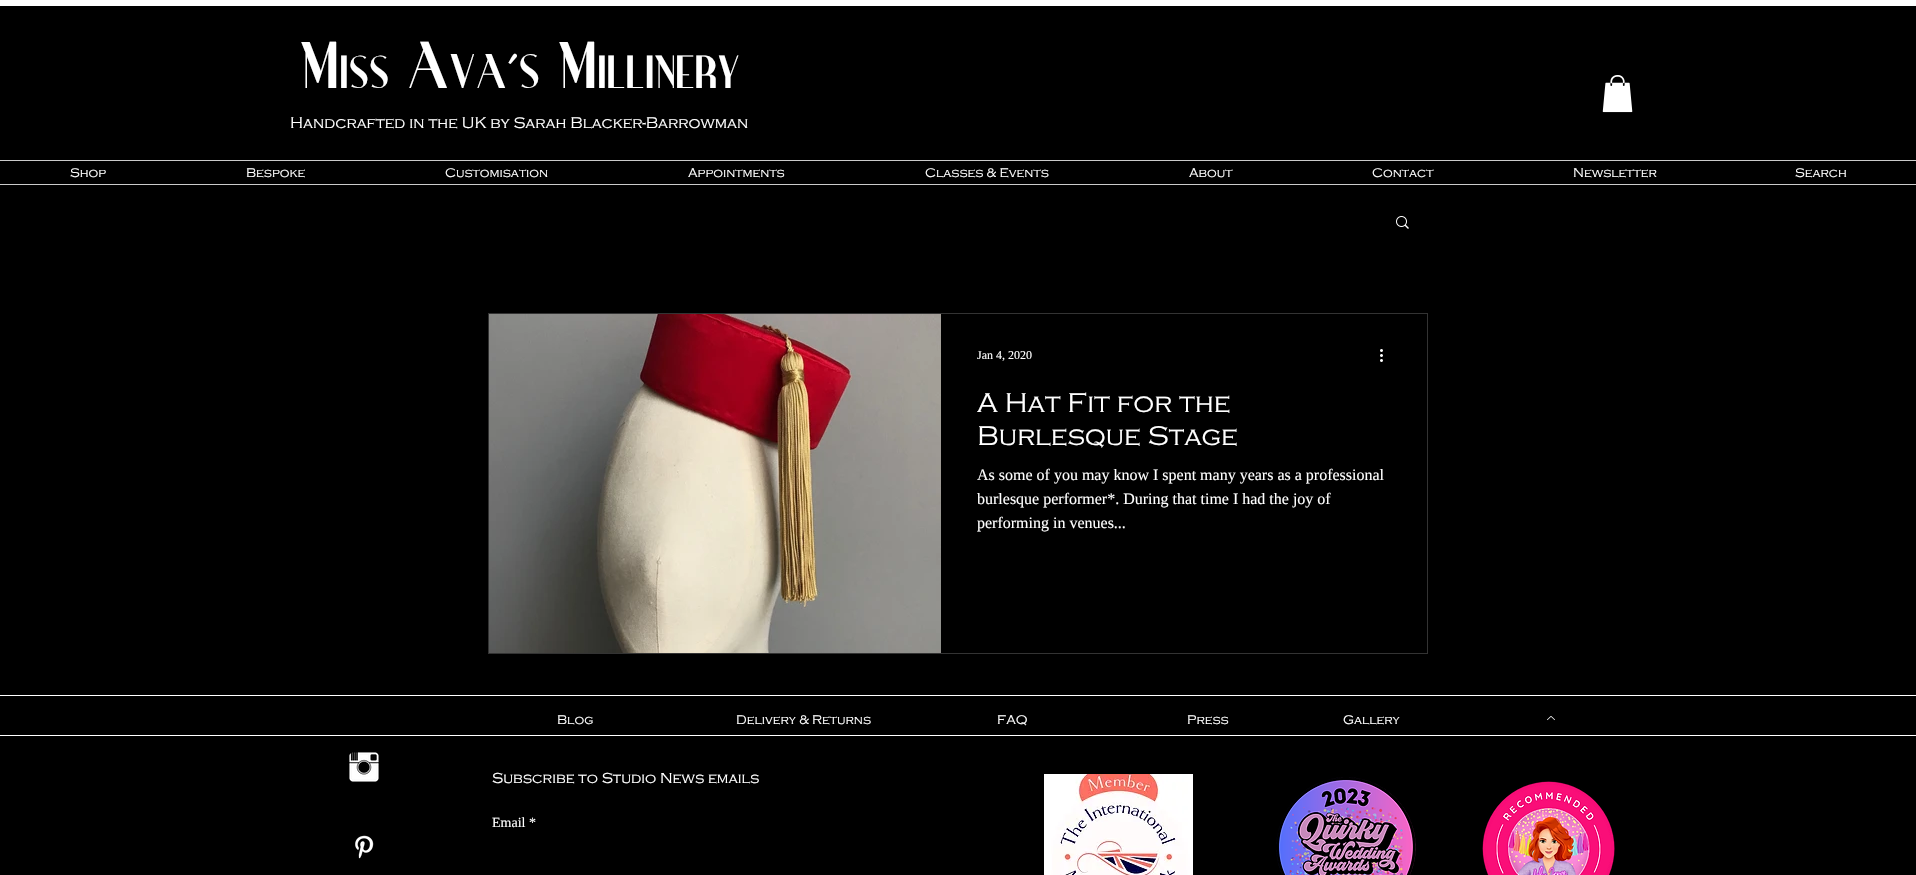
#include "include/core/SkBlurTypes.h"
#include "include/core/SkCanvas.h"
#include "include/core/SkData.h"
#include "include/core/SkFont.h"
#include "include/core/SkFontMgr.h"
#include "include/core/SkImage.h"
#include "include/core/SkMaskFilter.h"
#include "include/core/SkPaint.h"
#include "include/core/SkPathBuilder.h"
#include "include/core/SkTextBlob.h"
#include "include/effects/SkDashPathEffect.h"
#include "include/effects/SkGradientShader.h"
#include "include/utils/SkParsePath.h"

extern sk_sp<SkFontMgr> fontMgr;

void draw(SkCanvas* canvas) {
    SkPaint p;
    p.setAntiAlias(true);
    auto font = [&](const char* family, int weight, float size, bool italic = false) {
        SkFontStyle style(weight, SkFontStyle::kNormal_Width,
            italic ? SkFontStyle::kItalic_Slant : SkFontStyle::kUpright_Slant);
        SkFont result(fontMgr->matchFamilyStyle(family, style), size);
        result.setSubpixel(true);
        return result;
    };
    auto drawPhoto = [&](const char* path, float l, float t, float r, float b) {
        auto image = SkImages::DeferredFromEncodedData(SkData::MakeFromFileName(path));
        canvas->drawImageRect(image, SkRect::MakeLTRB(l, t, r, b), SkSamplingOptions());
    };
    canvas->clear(0xFF000000);
    p.setColor(0xFFFFFFFF);
    canvas->drawRect(SkRect::MakeLTRB(0, 0, 1916, 6), p);
    auto font1 = font("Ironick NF", 400, 64);
    canvas->drawString("M", 299, 88, font1, p);
    auto font2 = font("Ironick NF", 400, 45);
    canvas->drawString("ISS", 339, 88, font2, p);
    canvas->drawString("A", 407, 88, font1, p);
    auto font3 = font("Ironick NF", 400, 47);
    canvas->drawString("VA'S", 449, 88, font3, p);
    canvas->drawString("M", 557, 88, font1, p);
    canvas->drawString("ILLINERY", 597, 88, font2, p);
    auto font4 = font("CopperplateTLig", 400, 16);
    canvas->drawString("Handcrafted in the UK by Sarah Blacker-Barrowman", 290, 128, font4, p);
    drawPhoto("media/1.png", 1602, 75, 1633, 113);
    p.setColor(0xFFCACACA);
    canvas->drawRect(SkRect::MakeLTRB(0, 160, 1916, 161), p);
    canvas->drawRect(SkRect::MakeLTRB(0, 184, 1916, 185), p);
    auto font5 = font("CopperplateTLig", 400, 13);
    p.setColor(0xFFFFFFFF);
    {
        const struct { const char* s; float x, y; } items[] = {
            {"Shop", 70, 177},
            {"Bespoke", 246, 177},
            {"Customisation", 445, 177},
            {"Appointments", 688, 177},
            {"Classes & Events", 925, 177},
            {"About", 1189, 177},
            {"Contact", 1372, 177},
            {"Newsletter", 1573, 177},
            {"Search", 1795, 177},
        };
        for (auto [s, x, y] : items) {
            canvas->drawString(s, x, y, font5, p);
        }
    }
    drawPhoto("media/2.png", 1396, 216, 1409, 229);
    p.setStyle(SkPaint::kStroke_Style);
    p.setStrokeWidth(1);
    p.setColor(0xFF333333);
    canvas->drawRect(SkRect::MakeLTRB(488.5f, 313.5f, 1427.5f, 653.5f), p);
    drawPhoto("media/3.png", 489, 314, 941, 653);
    auto font6 = font("Liberation Serif", 400, 12);
    p.setStyle(SkPaint::kFill_Style);
    p.setColor(0xFFFFFFFF);
    canvas->drawString("Jan 4, 2020", 977, 359, font6, p);
    drawPhoto("media/4.png", 1380, 349, 1383, 362);
    auto font7 = font("CopperplateTLig", 400, 28);
    canvas->drawString("A Hat Fit for the", 977, 412, font7, p);
    canvas->drawString("Burlesque Stage", 977, 445, font7, p);
    auto font8 = font("Liberation Serif", 400, 16);
    {
        const struct { const char* s; float x, y; } items[] = {
            {"As some of you may know I spent many years as a professional", 977, 480},
            {"burlesque performer*. During that time I had the joy of", 977, 504},
            {"performing in venues...", 977, 528},
        };
        for (auto [s, x, y] : items) {
            canvas->drawString(s, x, y, font8, p);
        }
    }
    canvas->drawRect(SkRect::MakeLTRB(0, 695, 1916, 696), p);
    {
        const struct { const char* s; float x, y; } items[] = {
            {"Blog", 557, 724},
            {"Delivery & Returns", 736, 724},
            {"FAQ", 997, 724},
            {"Press", 1187, 724},
            {"Gallery", 1343, 724},
        };
        for (auto [s, x, y] : items) {
            canvas->drawString(s, x, y, font5, p);
        }
    }
    drawPhoto("media/5.png", 1547, 716, 1555, 721);
    canvas->drawRect(SkRect::MakeLTRB(0, 735, 1916, 736), p);
    drawPhoto("media/6.png", 349, 752, 379, 782);
    drawPhoto("media/7.png", 355, 835, 374, 859);
    auto font9 = font("CopperplateTLig", 400, 15);
    canvas->drawString("Subscribe to Studio News emails", 492, 783, font9, p);
    auto font10 = font("Liberation Serif", 400, 14);
    canvas->drawString("Email", 492, 827, font10, p);
    canvas->drawString("*", 529, 827, font10, p);
    drawPhoto("media/8.png", 1044, 774, 1193, 875);
    drawPhoto("media/9.png", 1276, 777, 1416, 875);
    drawPhoto("media/10.png", 1482, 781, 1615, 875);
}
